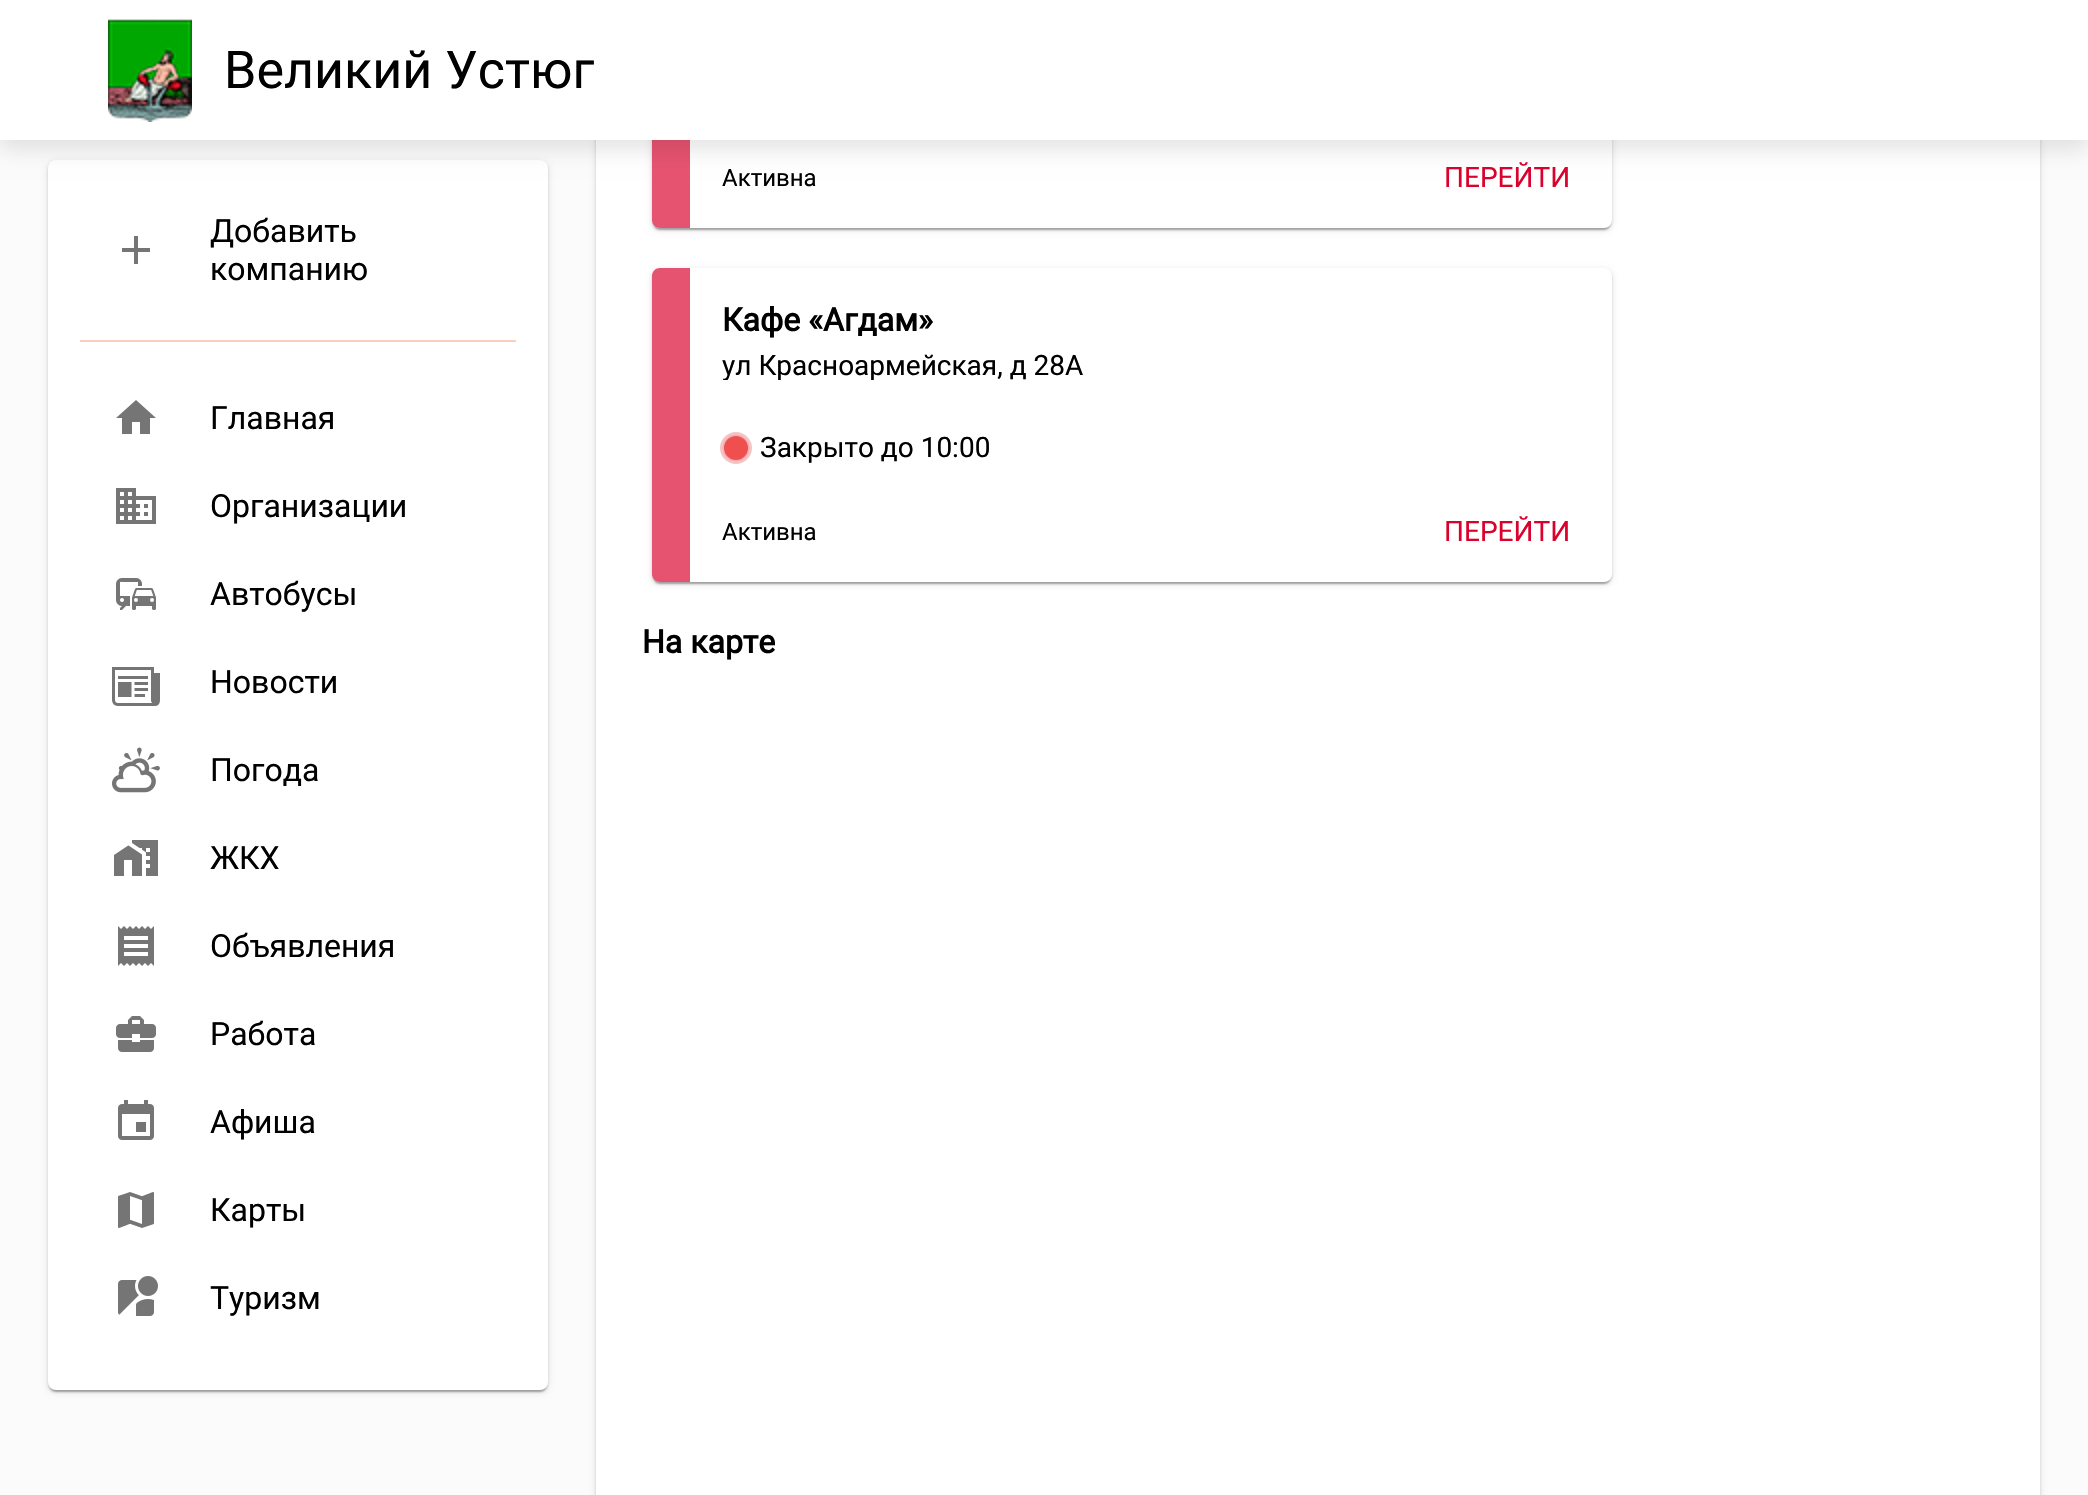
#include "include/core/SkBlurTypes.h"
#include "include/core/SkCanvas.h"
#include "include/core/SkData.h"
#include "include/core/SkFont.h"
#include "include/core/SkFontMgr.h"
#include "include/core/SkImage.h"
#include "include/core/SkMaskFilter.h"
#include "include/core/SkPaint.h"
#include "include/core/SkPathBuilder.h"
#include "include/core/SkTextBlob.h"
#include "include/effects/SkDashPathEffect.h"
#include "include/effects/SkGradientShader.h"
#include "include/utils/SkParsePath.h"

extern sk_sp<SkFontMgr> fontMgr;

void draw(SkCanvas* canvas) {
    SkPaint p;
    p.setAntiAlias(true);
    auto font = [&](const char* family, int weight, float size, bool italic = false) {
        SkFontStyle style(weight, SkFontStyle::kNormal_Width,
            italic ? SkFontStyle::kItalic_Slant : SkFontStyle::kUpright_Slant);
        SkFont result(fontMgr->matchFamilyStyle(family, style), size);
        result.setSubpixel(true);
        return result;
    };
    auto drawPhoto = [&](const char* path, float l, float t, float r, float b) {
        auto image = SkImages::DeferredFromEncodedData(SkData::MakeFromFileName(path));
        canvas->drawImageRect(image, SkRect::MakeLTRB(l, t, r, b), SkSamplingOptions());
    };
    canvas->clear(0xFFFBFBFB);
    p.setColor(0x1F000000);
    p.setMaskFilter(SkMaskFilter::MakeBlur(kNormal_SkBlurStyle, 3));
    canvas->drawRoundRect(SkRect::MakeLTRB(48, 162, 548, 1392), 8, 8, p);
    p.setMaskFilter(nullptr);
    p.setColor(0x24000000);
    p.setMaskFilter(SkMaskFilter::MakeBlur(kNormal_SkBlurStyle, 1));
    canvas->drawRoundRect(SkRect::MakeLTRB(48, 162, 548, 1392), 8, 8, p);
    p.setMaskFilter(nullptr);
    p.setColor(0x33000000);
    p.setMaskFilter(SkMaskFilter::MakeBlur(kNormal_SkBlurStyle, 1));
    canvas->drawRoundRect(SkRect::MakeLTRB(50, 166, 546, 1392), 6, 6, p);
    p.setMaskFilter(nullptr);
    p.setColor(0xFFFFFFFF);
    canvas->drawRoundRect(SkRect::MakeLTRB(48, 160, 548, 1390), 8, 8, p);
    p.setColor(0x1F000000);
    p.setMaskFilter(SkMaskFilter::MakeBlur(kNormal_SkBlurStyle, 3));
    canvas->drawRoundRect(SkRect::MakeLTRB(596, -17, 2040, 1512), 8, 8, p);
    p.setMaskFilter(nullptr);
    p.setColor(0x24000000);
    p.setMaskFilter(SkMaskFilter::MakeBlur(kNormal_SkBlurStyle, 1));
    canvas->drawRoundRect(SkRect::MakeLTRB(596, -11, 2040, 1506), 8, 8, p);
    p.setMaskFilter(nullptr);
    p.setColor(0xFFFFFFFF);
    canvas->drawRect(SkRect::MakeLTRB(596, 140, 2040, 1495), p);
    p.setColor(0x1F000000);
    p.setMaskFilter(SkMaskFilter::MakeBlur(kNormal_SkBlurStyle, 3));
    canvas->drawRoundRect(SkRect::MakeLTRB(652, -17, 1612, 230), 8, 8, p);
    p.setMaskFilter(nullptr);
    p.setColor(0x24000000);
    p.setMaskFilter(SkMaskFilter::MakeBlur(kNormal_SkBlurStyle, 1));
    canvas->drawRoundRect(SkRect::MakeLTRB(652, -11, 1612, 230), 8, 8, p);
    p.setMaskFilter(nullptr);
    p.setColor(0x33000000);
    p.setMaskFilter(SkMaskFilter::MakeBlur(kNormal_SkBlurStyle, 1));
    canvas->drawRoundRect(SkRect::MakeLTRB(654, -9, 1610, 230), 6, 6, p);
    p.setMaskFilter(nullptr);
    p.setColor(0xFFFFFFFF);
    canvas->drawRoundRect(SkRect::MakeLTRB(652, -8, 1612, 228), 8, 8, p);
    p.setColor(0xADDA022C);
    canvas->drawPath(SkPathBuilder().moveTo(660, -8).lineTo(690, -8).lineTo(690, 228).lineTo(660, 228).cubicTo(655.5f, 228, 652, 224.5f, 652, 220).lineTo(652, 0).cubicTo(652, -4.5f, 655.5f, -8, 660, -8).close().detach(), p);
    p.setColor(0x1A000000);
    p.setMaskFilter(SkMaskFilter::MakeBlur(kNormal_SkBlurStyle, 10));
    canvas->drawRect(SkRect::MakeLTRB(0, 10, 2088, 150), p);
    p.setMaskFilter(nullptr);
    p.setColor(0xFFFFFFFF);
    canvas->drawRect(SkRect::MakeLTRB(0, 0, 2088, 140), p);
    drawPhoto("media/1.png", 108, 19, 192, 122);
    auto font1 = font("Roboto", 400, 52);
    p.setColor(0xFF000000);
    canvas->drawString("Великий Устюг", 224, 88, font1, p);
    p.setColor(0xFFF9CFBB);
    canvas->drawRect(SkRect::MakeLTRB(80, 340, 516, 342), p);
    drawPhoto("media/2.png", 122, 236, 150, 264);
    auto font2 = font("Roboto", 400, 32);
    p.setColor(0xFF000000);
    canvas->drawString("Добавить", 210, 242, font2, p);
    canvas->drawString("компанию", 210, 280, font2, p);
    p.setColor(0xFF757575);
    canvas->drawPath(SkPathBuilder().moveTo(132, 434).lineTo(132, 422).lineTo(140, 422).lineTo(140, 434).lineTo(150, 434).lineTo(150, 418).lineTo(156, 418).lineTo(136, 400).lineTo(116, 418).lineTo(122, 418).lineTo(122, 434).close().detach(), p);
    p.setColor(0xFF000000);
    canvas->drawString("Главная", 210, 429, font2, p);
    drawPhoto("media/3.png", 116, 488, 156, 524);
    canvas->drawString("Организации", 210, 517, font2, p);
    drawPhoto("media/4.png", 116, 578, 156, 610);
    canvas->drawString("Автобусы", 210, 605, font2, p);
    drawPhoto("media/5.png", 112, 667, 160, 706);
    canvas->drawString("Новости", 210, 693, font2, p);
    drawPhoto("media/6.png", 112, 747, 160, 793);
    canvas->drawString("Погода", 210, 781, font2, p);
    drawPhoto("media/7.png", 114, 840, 158, 876);
    canvas->drawString("ЖКХ", 210, 869, font2, p);
    drawPhoto("media/8.png", 118, 926, 154, 966);
    canvas->drawString("Объявления", 210, 957, font2, p);
    drawPhoto("media/9.png", 116, 1016, 156, 1052);
    canvas->drawString("Работа", 210, 1045, font2, p);
    drawPhoto("media/10.png", 118, 1100, 154, 1140);
    canvas->drawString("Афиша", 210, 1133, font2, p);
    drawPhoto("media/11.png", 118, 1192, 154, 1228);
    canvas->drawString("Карты", 210, 1221, font2, p);
    drawPhoto("media/12.png", 118, 1276, 158, 1316);
    canvas->drawString("Туризм", 210, 1309, font2, p);
    auto font3 = font("Roboto", 400, 24);
    canvas->drawString("Активна", 722, 186, font3, p);
    auto font4 = font("Roboto", 400, 28);
    p.setColor(0xFFDA022C);
    canvas->drawString("ПЕРЕЙТИ", 1444, 187, font4, p);
    p.setColor(0x1F000000);
    p.setMaskFilter(SkMaskFilter::MakeBlur(kNormal_SkBlurStyle, 3));
    canvas->drawRoundRect(SkRect::MakeLTRB(652, 270, 1612, 584), 8, 8, p);
    p.setMaskFilter(nullptr);
    p.setColor(0x24000000);
    p.setMaskFilter(SkMaskFilter::MakeBlur(kNormal_SkBlurStyle, 1));
    canvas->drawRoundRect(SkRect::MakeLTRB(652, 270, 1612, 584), 8, 8, p);
    p.setMaskFilter(nullptr);
    p.setColor(0x33000000);
    p.setMaskFilter(SkMaskFilter::MakeBlur(kNormal_SkBlurStyle, 1));
    canvas->drawRoundRect(SkRect::MakeLTRB(654, 274, 1610, 584), 6, 6, p);
    p.setMaskFilter(nullptr);
    p.setColor(0xFFFFFFFF);
    canvas->drawRoundRect(SkRect::MakeLTRB(652, 268, 1612, 582), 8, 8, p);
    p.setColor(0xADDA022C);
    canvas->drawPath(SkPathBuilder().moveTo(660, 268).lineTo(690, 268).lineTo(690, 582).lineTo(660, 582).cubicTo(655.5f, 582, 652, 578.5f, 652, 574).lineTo(652, 276).cubicTo(652, 271.5f, 655.5f, 268, 660, 268).close().detach(), p);
    auto font5 = font("Roboto", 700, 32);
    p.setColor(0xFF000000);
    canvas->drawString("Кафе «Агдам»", 722, 331, font5, p);
    canvas->save();
    canvas->clipRect(SkRect::MakeLTRB(722, 348, 1580, 380));
    canvas->drawString("ул Красноармейская, д 28А", 722, 375, font4, p);
    canvas->restore();
    p.setStyle(SkPaint::kStroke_Style);
    p.setStrokeWidth(2);
    p.setColor(0xFFF5C4C4);
    canvas->drawCircle(736, 448, 15, p);
    p.setStyle(SkPaint::kFill_Style);
    p.setColor(0xFFEF4F4F);
    canvas->drawCircle(736, 448, 13, p);
    p.setStyle(SkPaint::kStroke_Style);
    p.setColor(0xFFF3B3B3);
    canvas->drawCircle(736, 448, 13, p);
    p.setStyle(SkPaint::kFill_Style);
    p.setColor(0xFF000000);
    canvas->drawString("Закрыто до 10:00", 760, 457, font4, p);
    canvas->drawString("Активна", 722, 540, font3, p);
    p.setColor(0xFFDA022C);
    canvas->drawString("ПЕРЕЙТИ", 1444, 541, font4, p);
    p.setColor(0xFF000000);
    canvas->drawString("На карте", 642, 653, font5, p);
}
